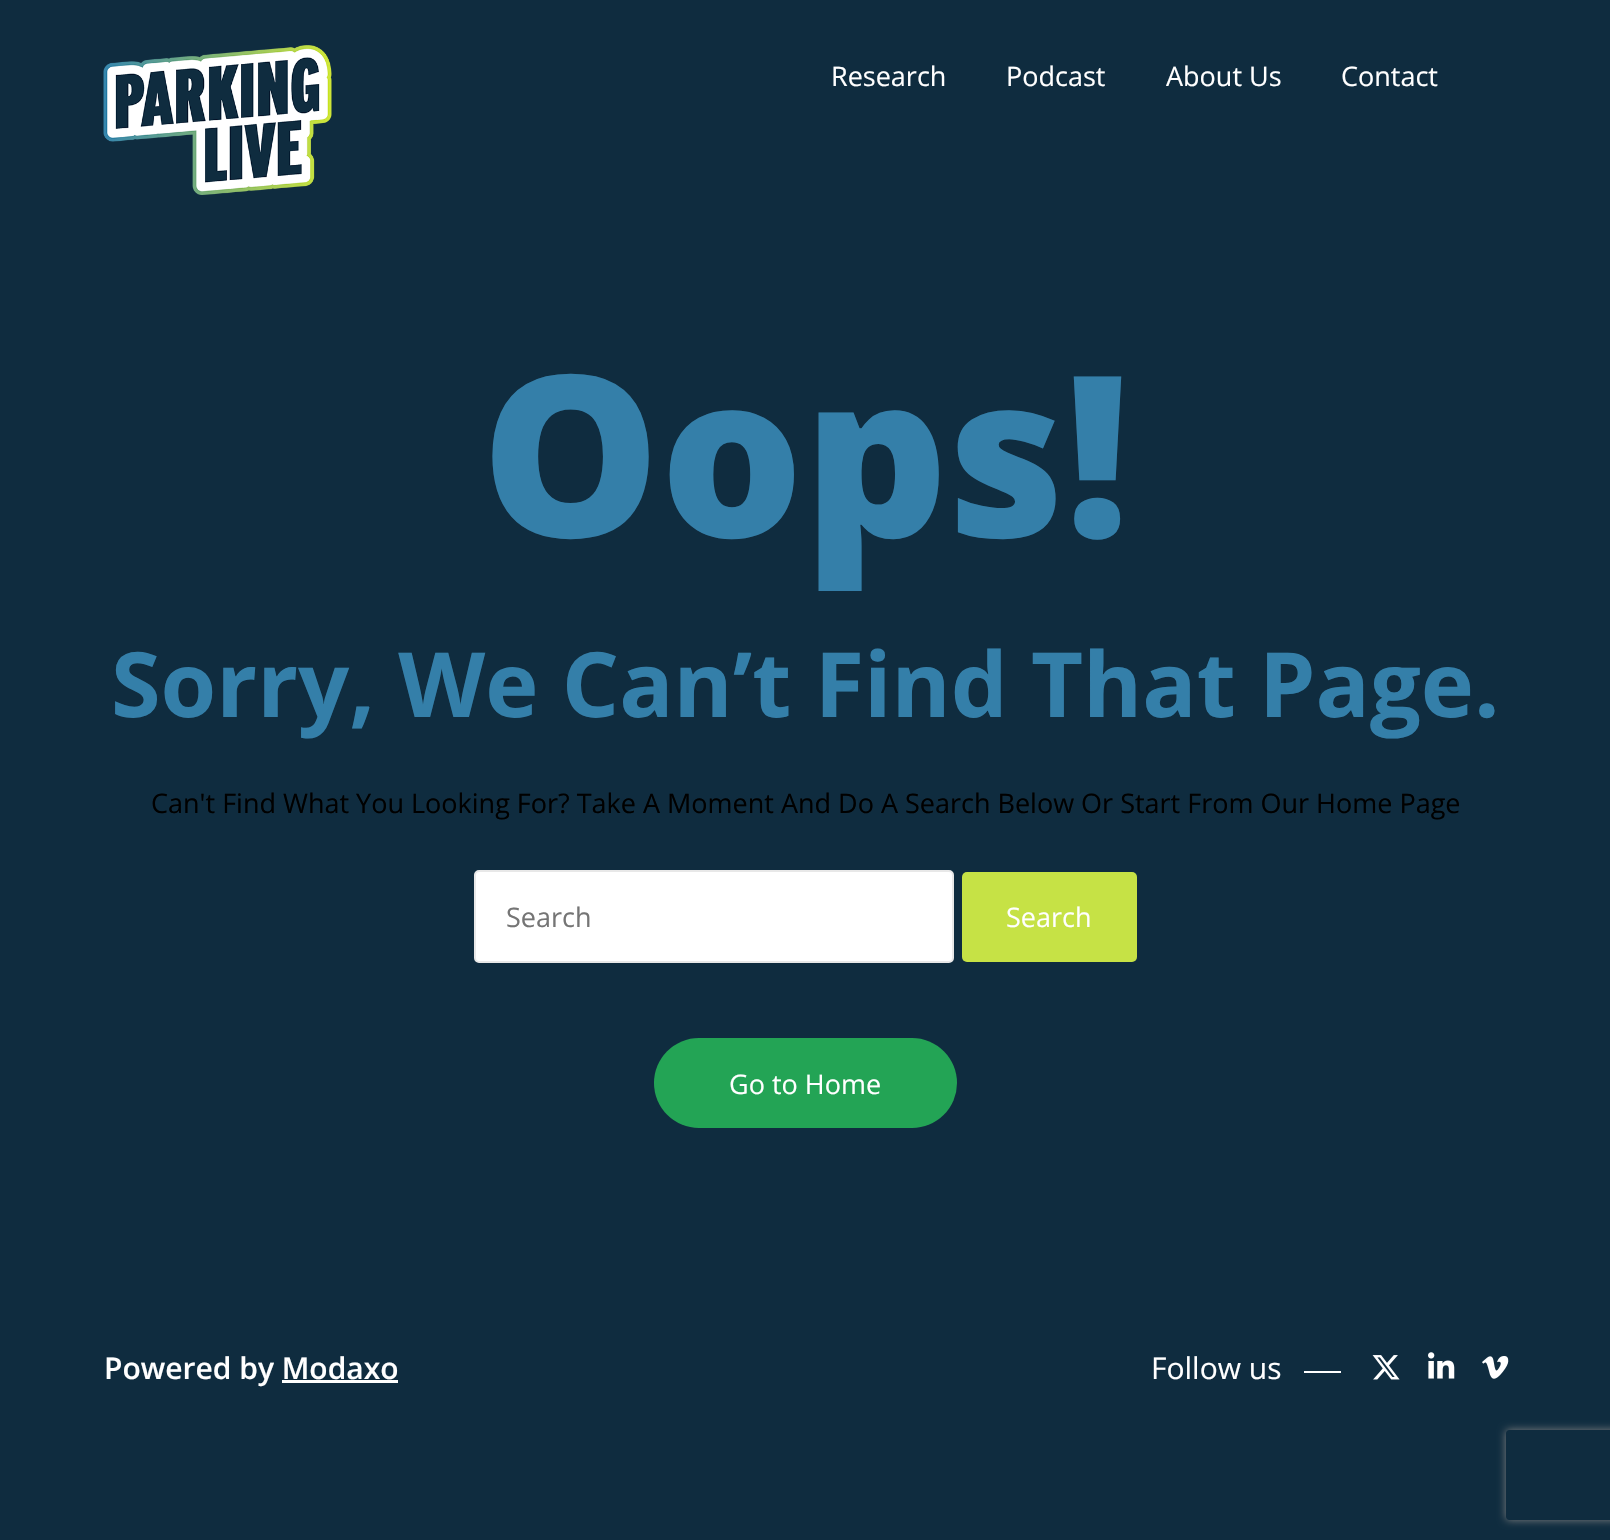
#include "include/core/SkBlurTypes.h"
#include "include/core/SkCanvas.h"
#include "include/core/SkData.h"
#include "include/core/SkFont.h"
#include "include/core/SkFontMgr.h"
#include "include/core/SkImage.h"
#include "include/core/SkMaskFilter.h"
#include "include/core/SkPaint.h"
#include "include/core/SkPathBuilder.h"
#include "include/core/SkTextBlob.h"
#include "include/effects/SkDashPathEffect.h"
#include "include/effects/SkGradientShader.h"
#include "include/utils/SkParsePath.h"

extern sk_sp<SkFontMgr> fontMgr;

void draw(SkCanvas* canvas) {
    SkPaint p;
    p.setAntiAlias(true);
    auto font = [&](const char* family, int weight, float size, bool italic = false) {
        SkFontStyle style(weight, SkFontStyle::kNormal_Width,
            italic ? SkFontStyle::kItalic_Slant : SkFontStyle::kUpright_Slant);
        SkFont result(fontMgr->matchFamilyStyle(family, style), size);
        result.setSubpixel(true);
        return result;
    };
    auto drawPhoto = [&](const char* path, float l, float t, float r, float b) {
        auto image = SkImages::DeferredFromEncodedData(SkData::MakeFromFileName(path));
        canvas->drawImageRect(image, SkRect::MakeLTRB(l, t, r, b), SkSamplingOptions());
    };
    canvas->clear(0xFF0F2C3F);
    drawPhoto("media/1.png", 103, 45, 332, 195);
    auto font1 = font("Open Sans", 400, 27);
    p.setColor(0xFFFFFFFF);
    {
        const struct { const char* s; float x, y; } items[] = {
            {"Research", 831, 86},
            {"Podcast", 1006, 86},
            {"About Us", 1166, 86},
            {"Contact", 1341, 86},
        };
        for (auto [s, x, y] : items) {
            canvas->drawString(s, x, y, font1, p);
        }
    }
    auto font2 = font("Open Sans", 800, 225);
    p.setColor(0xFF347FA9);
    canvas->drawString("Oops!", 481, 537, font2, p);
    auto font3 = font("Open Sans", 700, 90);
    canvas->drawString("Sorry, We Can’t Find That Page.", 111, 717, font3, p);
    p.setColor(0xFF000000);
    canvas->drawString("Can't Find What You Looking For? Take A Moment And Do A Search Below Or Start From Our Home Page", 151, 813, font1, p);
    p.setColor(0xFFFFFFFF);
    canvas->drawRoundRect(SkRect::MakeLTRB(475, 871, 953, 962), 4, 4, p);
    p.setStyle(SkPaint::kStroke_Style);
    p.setStrokeWidth(2);
    p.setColor(0xFFE8E8E8);
    canvas->drawRoundRect(SkRect::MakeLTRB(475, 871, 953, 962), 4, 4, p);
    p.setStyle(SkPaint::kFill_Style);
    p.setColor(0xFF757575);
    canvas->drawString("Search", 506, 927, font1, p);
    p.setColor(0xFFC6E245);
    canvas->drawRoundRect(SkRect::MakeLTRB(962, 872, 1137, 962), 5, 5, p);
    p.setColor(0xFFFFFFFF);
    canvas->drawString("Search", 1006, 927, font1, p);
    p.setColor(0xFF23A455);
    canvas->drawRoundRect(SkRect::MakeLTRB(654, 1038, 957, 1128), 45, 45, p);
    p.setColor(0xFFFFFFFF);
    canvas->drawString("Go to Home", 729, 1094, font1, p);
    auto font4 = font("Open Sans", 600, 30);
    canvas->drawString("Powered by Modaxo", 104, 1379, font4, p);
    canvas->drawRect(SkRect::MakeLTRB(282, 1380, 398, 1383), p);
    auto font5 = font("Open Sans", 400, 30);
    canvas->drawString("Follow us", 1151, 1379, font5, p);
    canvas->drawRect(SkRect::MakeLTRB(1304, 1371, 1341, 1373), p);
    drawPhoto("media/2.png", 1372, 1355, 1400, 1380);
    drawPhoto("media/3.png", 1428, 1352, 1455, 1379);
    drawPhoto("media/4.png", 1482, 1356, 1509, 1379);
    canvas->save();
    canvas->clipPath(SkPathBuilder(SkPathFillType::kEvenOdd).moveTo(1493, 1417).lineTo(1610, 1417).lineTo(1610, 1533).lineTo(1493, 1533).close().moveTo(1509, 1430).lineTo(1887, 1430).cubicTo(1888.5f, 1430, 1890, 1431.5f, 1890, 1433).lineTo(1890, 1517).cubicTo(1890, 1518.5f, 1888.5f, 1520, 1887, 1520).lineTo(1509, 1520).cubicTo(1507.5f, 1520, 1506, 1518.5f, 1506, 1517).lineTo(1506, 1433).cubicTo(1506, 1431.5f, 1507.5f, 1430, 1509, 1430).close().detach(), true);
    p.setColor(0xFF808080);
    p.setMaskFilter(SkMaskFilter::MakeBlur(kNormal_SkBlurStyle, 4));
    canvas->drawRoundRect(SkRect::MakeLTRB(1506, 1430, 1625, 1520), 3, 3, p);
    p.setMaskFilter(nullptr);
    canvas->restore();
}
